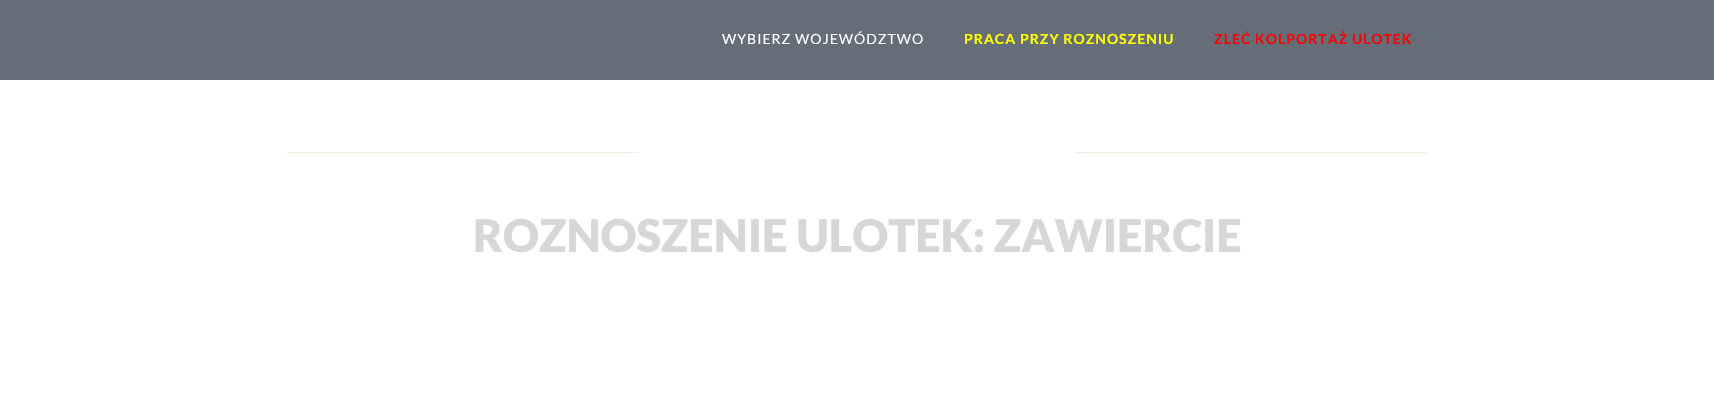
#include "include/core/SkBlurTypes.h"
#include "include/core/SkCanvas.h"
#include "include/core/SkData.h"
#include "include/core/SkFont.h"
#include "include/core/SkFontMgr.h"
#include "include/core/SkImage.h"
#include "include/core/SkMaskFilter.h"
#include "include/core/SkPaint.h"
#include "include/core/SkPathBuilder.h"
#include "include/core/SkTextBlob.h"
#include "include/effects/SkDashPathEffect.h"
#include "include/effects/SkGradientShader.h"
#include "include/utils/SkParsePath.h"

extern sk_sp<SkFontMgr> fontMgr;

void draw(SkCanvas* canvas) {
    SkPaint p;
    p.setAntiAlias(true);
    auto font = [&](const char* family, int weight, float size, bool italic = false) {
        SkFontStyle style(weight, SkFontStyle::kNormal_Width,
            italic ? SkFontStyle::kItalic_Slant : SkFontStyle::kUpright_Slant);
        SkFont result(fontMgr->matchFamilyStyle(family, style), size);
        result.setSubpixel(true);
        return result;
    };
    auto drawTracked = [&](const char* s, float x, float y, const SkFont& font, const SkPaint& ink, float letter, float word) {
        std::vector<SkGlyphID> glyphs(font.countText(s, strlen(s), SkTextEncoding::kUTF8));
        std::vector<float> xs(glyphs.size());
        font.textToGlyphs(s, strlen(s), SkTextEncoding::kUTF8, glyphs);
        font.getXPos(glyphs, xs, x);
        float extra = 0;
        for (size_t i = 0; i < glyphs.size(); i++) {
            xs[i] += extra;
            extra += letter + word * (glyphs[i] == font.unicharToGlyph(' '));
        }
        canvas->drawTextBlob(SkTextBlob::MakeFromPosHGlyphs(glyphs, xs, y, font), 0, 0, ink);
    };
    canvas->clear(0xFFFFFFFF);
    p.setColor(0xFF656D79);
    canvas->drawRect(SkRect::MakeLTRB(0, 0, 1714, 80), p);
    auto font1 = font("Lato", 400, 14);
    p.setColor(0xFFFFFFFF);
    drawTracked("WYBIERZ WOJEWÓDZTWO", 722, 44, font1, p, 1, 0);
    auto font2 = font("Lato", 700, 14);
    p.setColor(0xFFFFFF00);
    drawTracked("PRACA PRZY ROZNOSZENIU", 964, 44, font2, p, 1, 0);
    p.setColor(0xFFFF0000);
    drawTracked("ZLEĆ KOLPORTAŻ ULOTEK", 1214, 44, font2, p, 1, 0);
    p.setColor(0xFFF7EBDF);
    canvas->drawRect(SkRect::MakeLTRB(287, 152, 638, 153), p);
    canvas->drawRect(SkRect::MakeLTRB(1076, 152, 1427, 153), p);
    auto font3 = font("Lato", 900, 45);
    p.setColor(0xFFD7D7D7);
    canvas->drawString("ROZNOSZENIE ULOTEK: ZAWIERCIE", 473, 252, font3, p);
}
